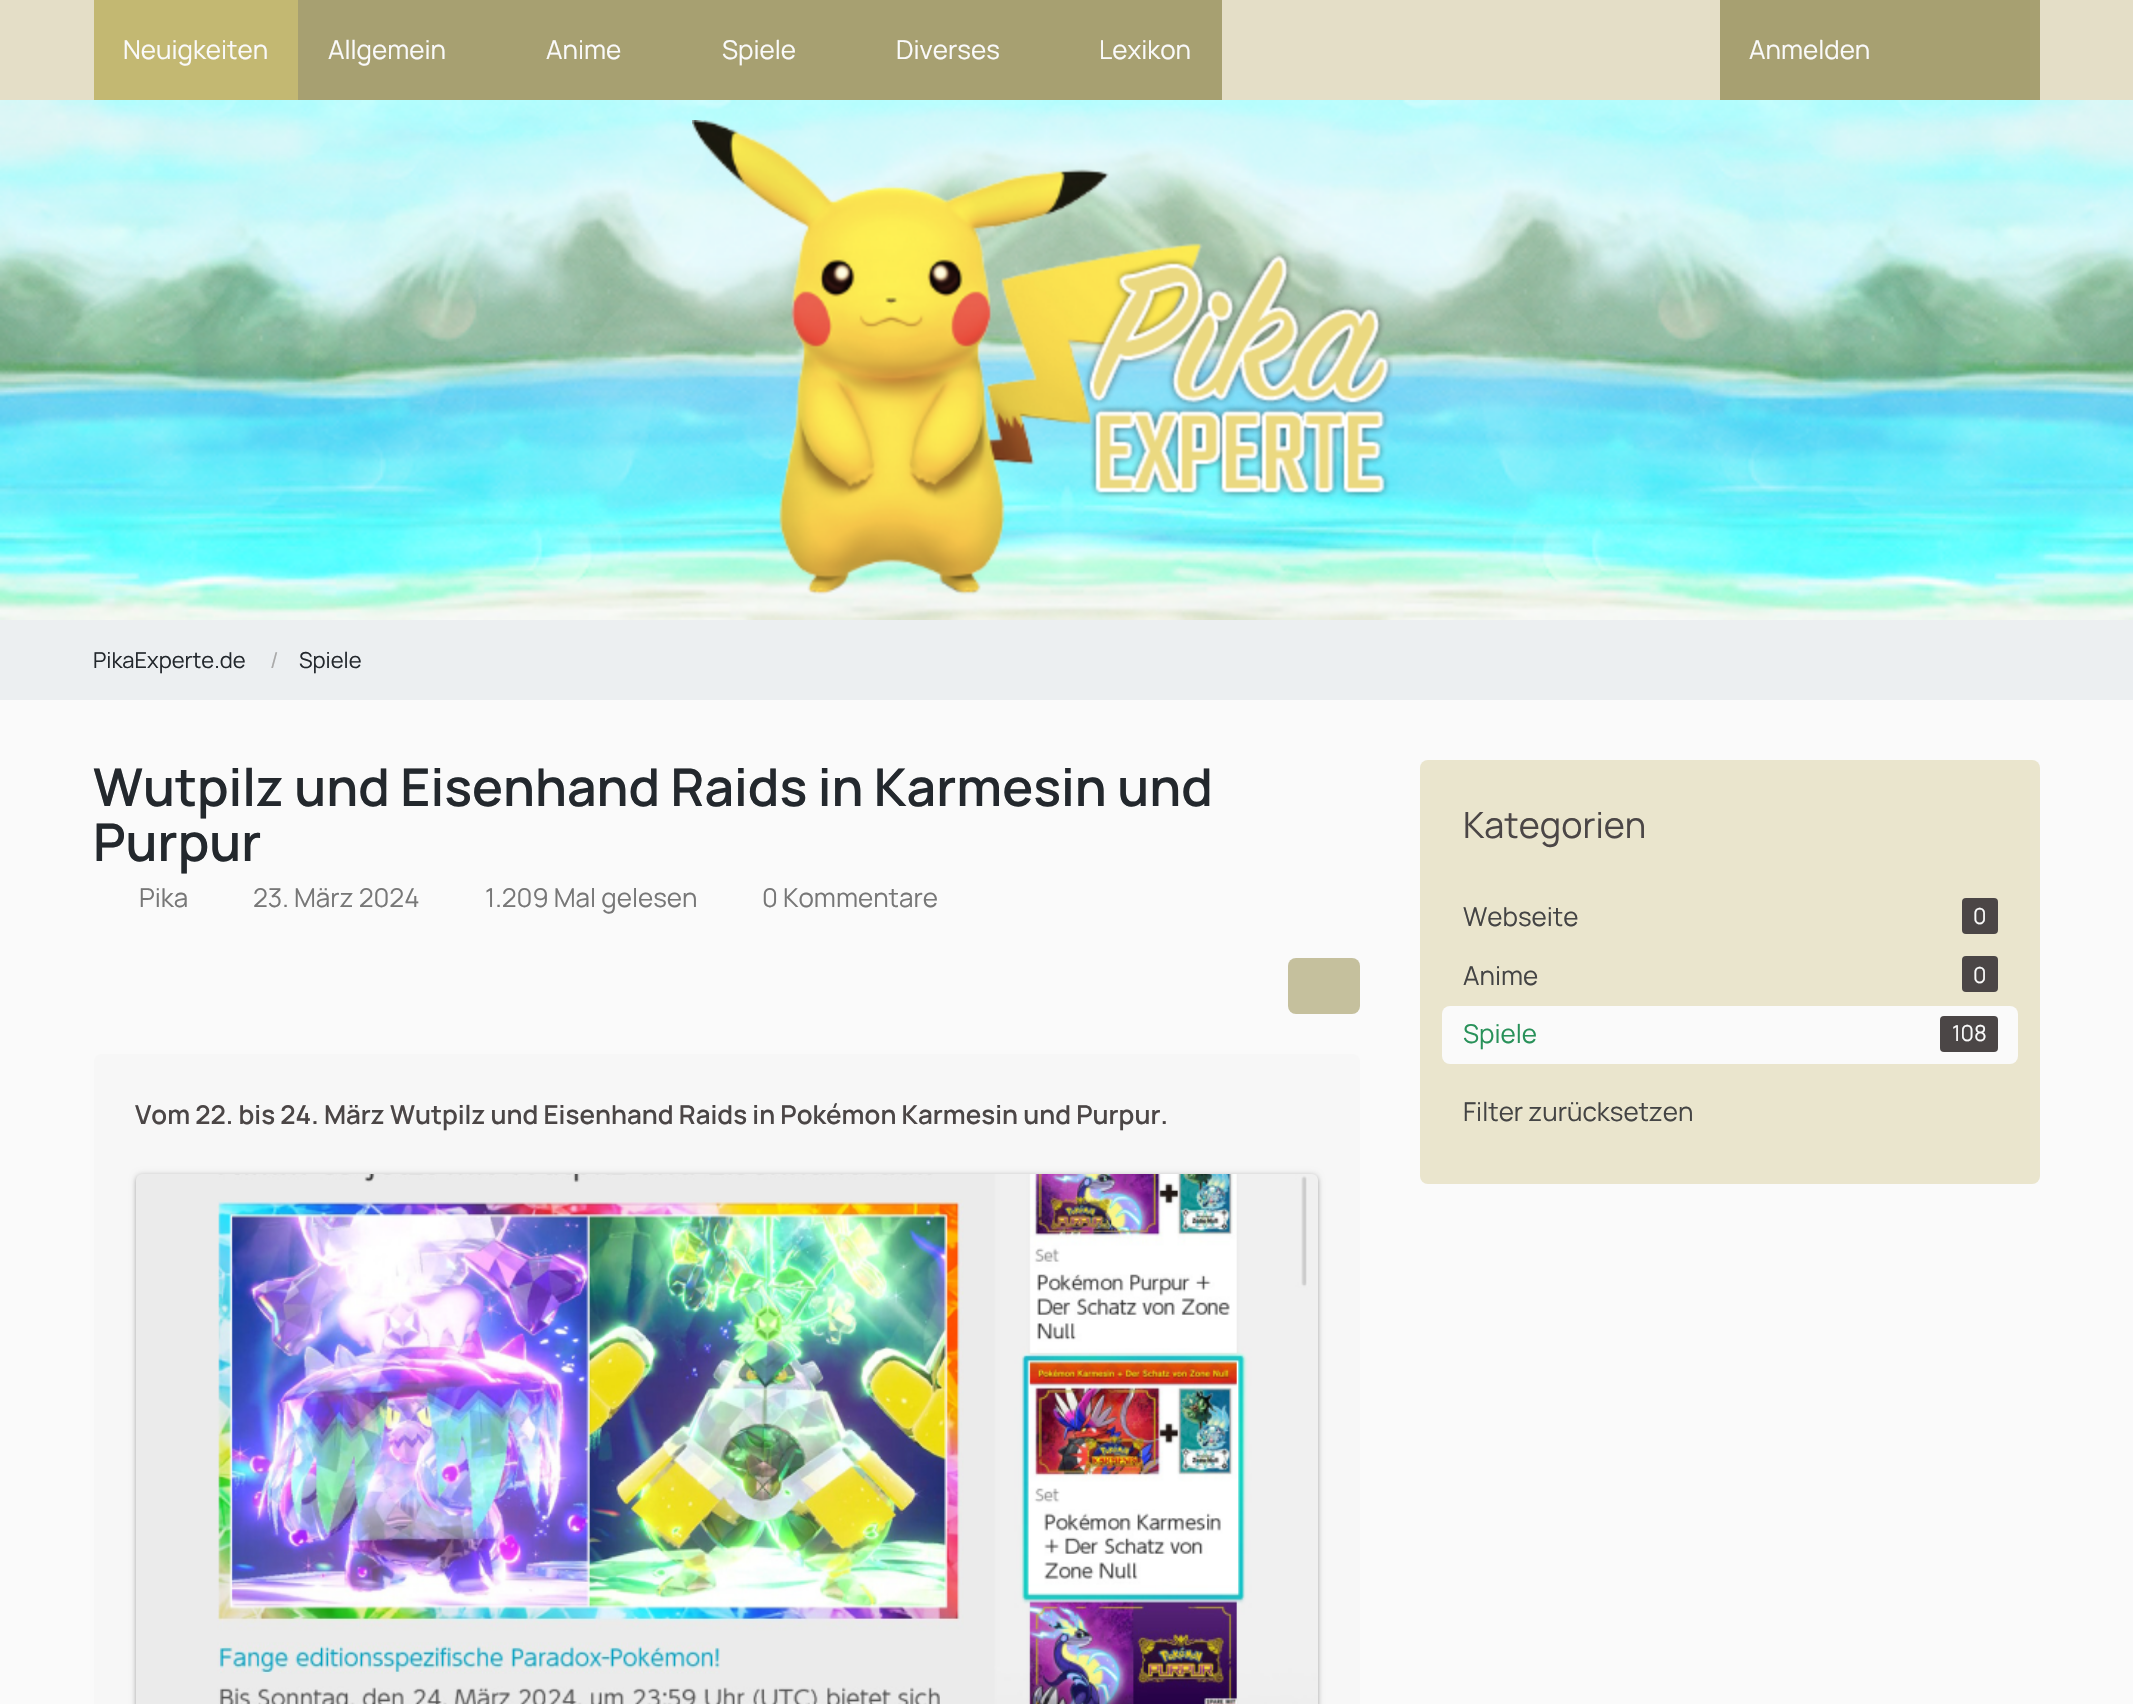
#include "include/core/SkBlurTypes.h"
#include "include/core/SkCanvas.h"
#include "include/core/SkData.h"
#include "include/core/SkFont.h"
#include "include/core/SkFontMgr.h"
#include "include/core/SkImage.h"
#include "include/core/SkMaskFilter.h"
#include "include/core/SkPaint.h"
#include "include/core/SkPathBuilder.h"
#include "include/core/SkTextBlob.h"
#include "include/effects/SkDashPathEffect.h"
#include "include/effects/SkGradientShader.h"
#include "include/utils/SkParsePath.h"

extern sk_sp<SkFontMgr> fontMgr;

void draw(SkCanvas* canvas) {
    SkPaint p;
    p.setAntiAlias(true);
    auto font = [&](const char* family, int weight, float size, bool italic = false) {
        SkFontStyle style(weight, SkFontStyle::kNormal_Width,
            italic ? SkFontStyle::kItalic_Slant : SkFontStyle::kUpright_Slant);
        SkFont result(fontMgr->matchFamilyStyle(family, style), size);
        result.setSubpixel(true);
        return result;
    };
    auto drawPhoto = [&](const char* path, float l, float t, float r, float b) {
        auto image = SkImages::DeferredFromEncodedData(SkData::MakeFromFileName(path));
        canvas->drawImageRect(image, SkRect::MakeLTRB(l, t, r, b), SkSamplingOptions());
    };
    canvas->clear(0xFFFAFAFA);
    p.setColor(0xFFE4DEC7);
    canvas->drawRect(SkRect::MakeLTRB(0, 0, 2133, 100), p);
    p.setColor(0xFFC3B872);
    canvas->drawRect(SkRect::MakeLTRB(94, 0, 298, 100), p);
    auto font1 = font("Manrope", 400, 26);
    p.setColor(0xFFFAFAFA);
    canvas->drawString("Neuigkeiten", 123, 59, font1, p);
    p.setColor(0xFFA7A071);
    canvas->drawRect(SkRect::MakeLTRB(298, 0, 1222, 100), p);
    p.setColor(0xFFFAFAFA);
    {
        const struct { const char* s; float x, y; } items[] = {
            {"Allgemein", 328, 59},
            {"Anime", 546, 59},
            {"Spiele", 722, 59},
            {"Diverses", 896, 59},
            {"Lexikon", 1099, 59},
        };
        for (auto [s, x, y] : items) {
            canvas->drawString(s, x, y, font1, p);
        }
    }
    p.setColor(0xFFA7A071);
    canvas->drawRect(SkRect::MakeLTRB(1720, 0, 2040, 100), p);
    p.setColor(0xFFFAFAFA);
    canvas->drawString("Anmelden", 1749, 59, font1, p);
    drawPhoto("media/1.png", 0, 100, 2133, 620);
    drawPhoto("media/2.png", 692, 120, 1393, 595);
    p.setColor(0xFFECEFF1);
    canvas->drawRect(SkRect::MakeLTRB(0, 620, 2133, 700), p);
    auto font2 = font("Manrope", 400, 22);
    p.setColor(0xFF23282D);
    canvas->drawString("PikaExperte.de", 93, 668, font2, p);
    p.setColor(0xFFAAAAAA);
    canvas->drawString("/", 270, 668, font2, p);
    p.setColor(0xFF23282D);
    canvas->drawString("Spiele", 299, 668, font2, p);
    auto font3 = font("Manrope", 600, 52);
    canvas->drawString("Wutpilz und Eisenhand Raids in Karmesin und", 93, 806, font3, p);
    canvas->drawString("Purpur", 93, 861, font3, p);
    p.setColor(0xFF777777);
    {
        const struct { const char* s; float x, y; } items[] = {
            {"Pika", 139, 907},
            {"23. März 2024", 253, 907},
            {"1.209 Mal gelesen", 485, 907},
            {"0 Kommentare", 762, 907},
        };
        for (auto [s, x, y] : items) {
            canvas->drawString(s, x, y, font1, p);
        }
    }
    p.setColor(0xFFC5C09D);
    canvas->drawRoundRect(SkRect::MakeLTRB(1288, 958, 1360, 1014), 8, 8, p);
    p.setColor(0xFFF7F7F7);
    canvas->drawRoundRect(SkRect::MakeLTRB(94, 1054, 1360, 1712), 8, 8, p);
    auto font4 = font("Manrope", 600, 26);
    p.setColor(0xFF4B4646);
    canvas->drawString("Vom 22. bis 24. März Wutpilz und Eisenhand Raids in Pokémon Karmesin und Purpur.", 135, 1124, font4, p);
    p.setColor(0x3D000000);
    p.setMaskFilter(SkMaskFilter::MakeBlur(kNormal_SkBlurStyle, 2));
    canvas->drawRoundRect(SkRect::MakeLTRB(136, 1176, 1318, 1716), 6, 6, p);
    p.setMaskFilter(nullptr);
    p.setColor(0x1F000000);
    p.setMaskFilter(SkMaskFilter::MakeBlur(kNormal_SkBlurStyle, 3));
    canvas->drawRoundRect(SkRect::MakeLTRB(136, 1174, 1318, 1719), 6, 6, p);
    p.setMaskFilter(nullptr);
    drawPhoto("media/3.png", 136, 1174, 1318, 1704);
    p.setColor(0xFFEAE5CD);
    canvas->drawRoundRect(SkRect::MakeLTRB(1420, 760, 2040, 1184), 8, 8, p);
    auto font5 = font("Manrope", 400, 36);
    p.setColor(0xFF4B4646);
    canvas->drawString("Kategorien", 1463, 838, font5, p);
    p.setColor(0xFF444444);
    canvas->drawString("Webseite", 1463, 926, font1, p);
    p.setColor(0xFF4B4646);
    canvas->drawRoundRect(SkRect::MakeLTRB(1962, 898, 1998, 934), 4, 4, p);
    p.setColor(0xFFFAFAFA);
    canvas->drawString("0", 1973, 924, font2, p);
    p.setColor(0xFF444444);
    canvas->drawString("Anime", 1463, 985, font1, p);
    p.setColor(0xFF4B4646);
    canvas->drawRoundRect(SkRect::MakeLTRB(1962, 956, 1998, 992), 4, 4, p);
    p.setColor(0xFFFAFAFA);
    canvas->drawString("0", 1973, 983, font2, p);
    canvas->drawRoundRect(SkRect::MakeLTRB(1442, 1006, 2018, 1064), 8, 8, p);
    p.setColor(0xFF289159);
    canvas->drawString("Spiele", 1463, 1043, font1, p);
    p.setColor(0xFF4B4646);
    canvas->drawRoundRect(SkRect::MakeLTRB(1940, 1016, 1998, 1052), 4, 4, p);
    p.setColor(0xFFFAFAFA);
    canvas->drawString("108", 1952, 1041, font2, p);
    p.setColor(0xFF444444);
    canvas->drawString("Filter zurücksetzen", 1463, 1121, font1, p);
}
